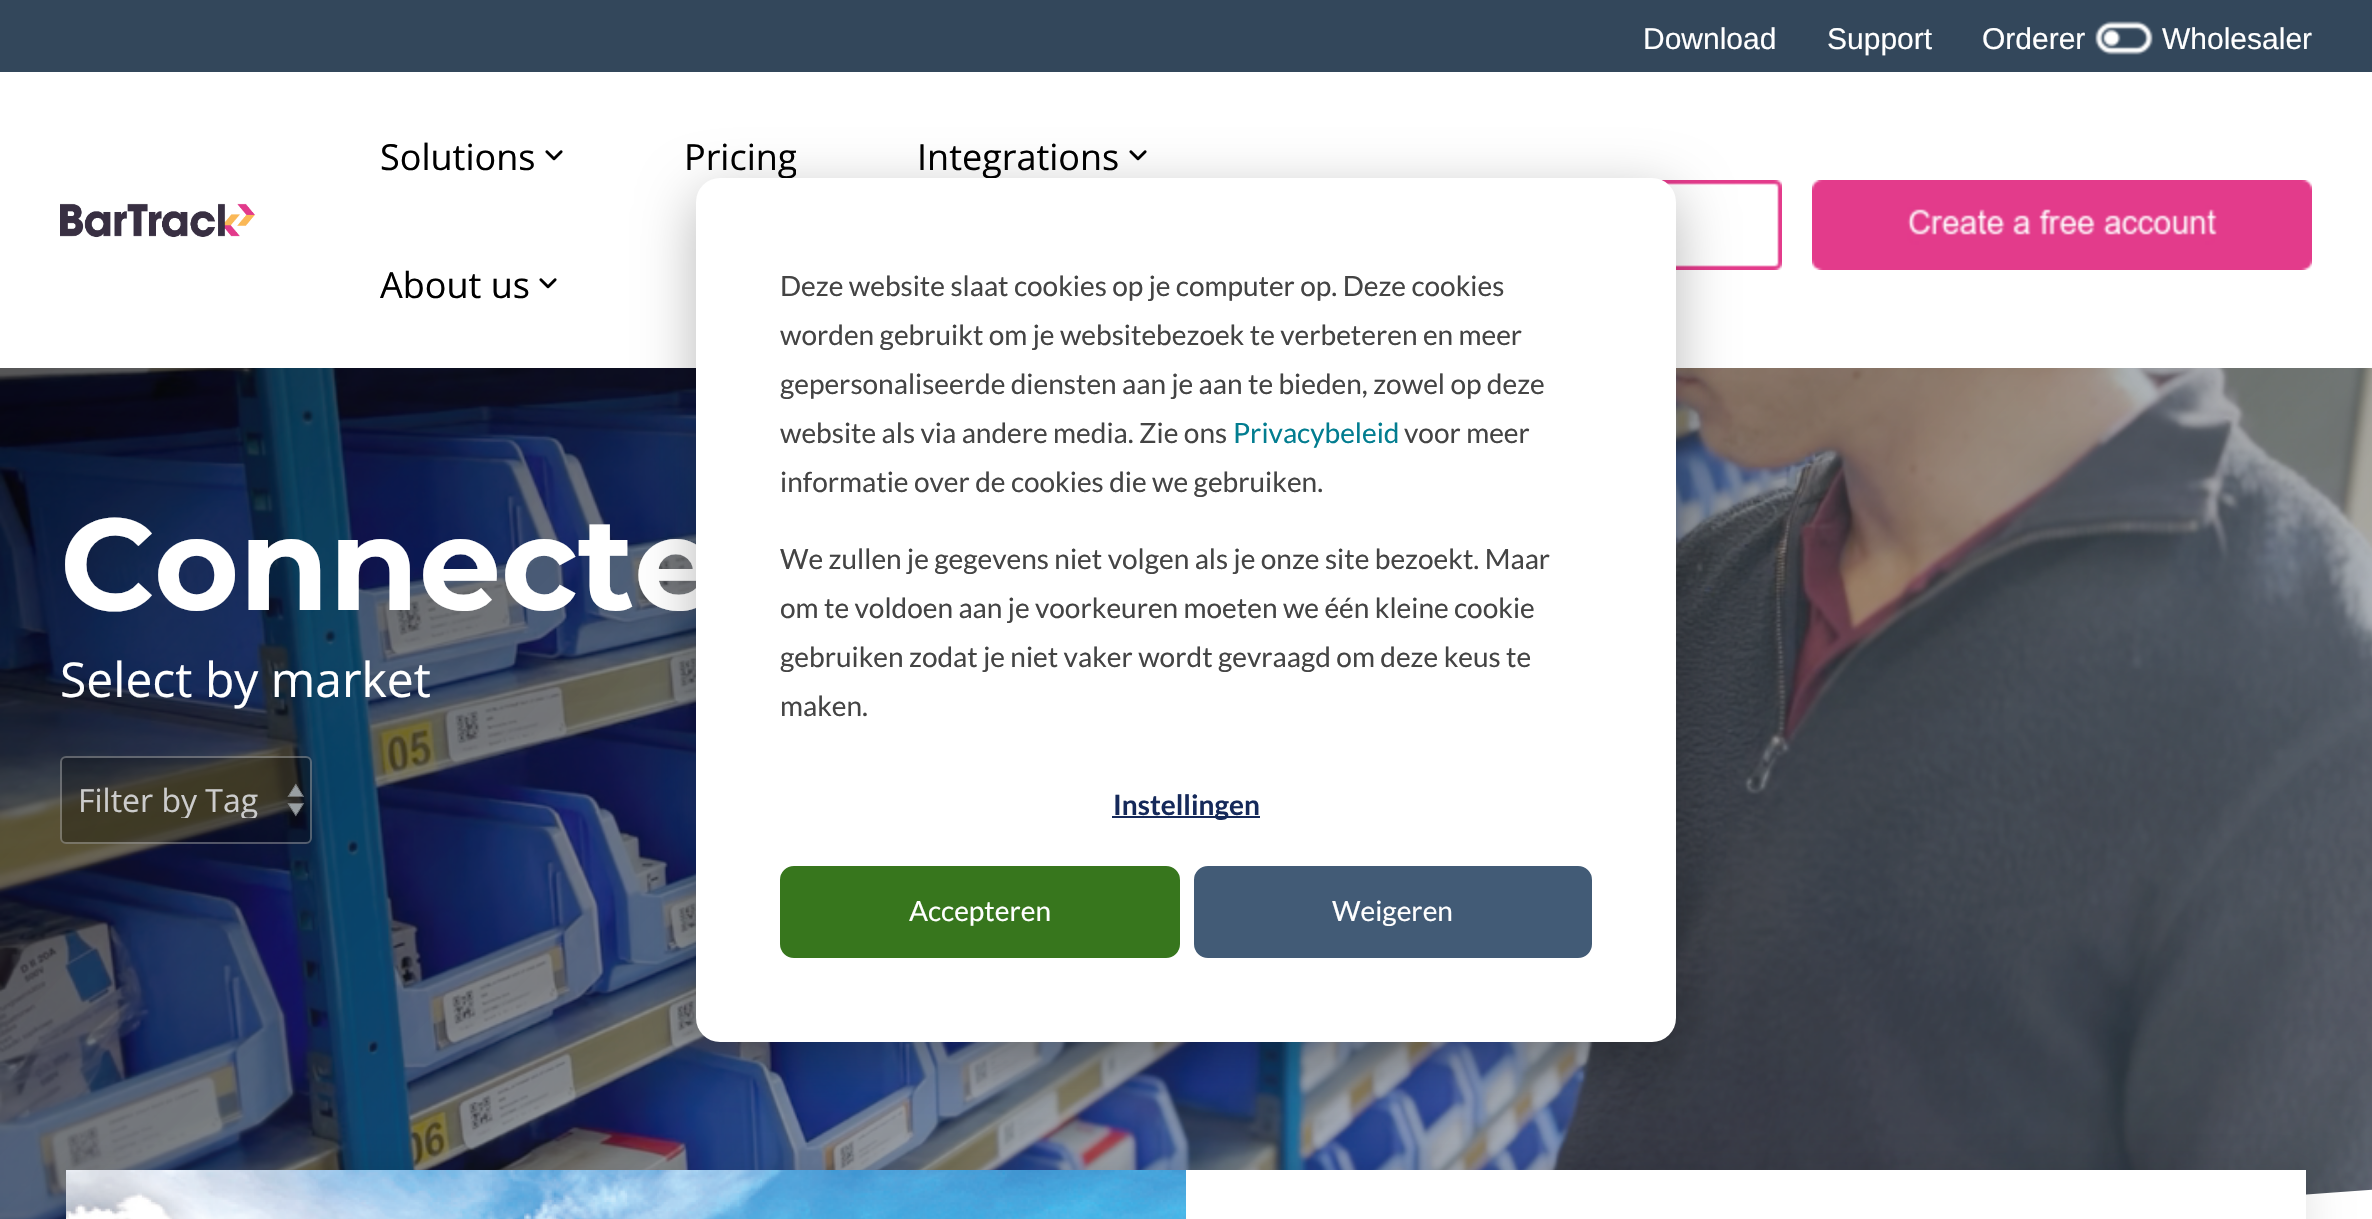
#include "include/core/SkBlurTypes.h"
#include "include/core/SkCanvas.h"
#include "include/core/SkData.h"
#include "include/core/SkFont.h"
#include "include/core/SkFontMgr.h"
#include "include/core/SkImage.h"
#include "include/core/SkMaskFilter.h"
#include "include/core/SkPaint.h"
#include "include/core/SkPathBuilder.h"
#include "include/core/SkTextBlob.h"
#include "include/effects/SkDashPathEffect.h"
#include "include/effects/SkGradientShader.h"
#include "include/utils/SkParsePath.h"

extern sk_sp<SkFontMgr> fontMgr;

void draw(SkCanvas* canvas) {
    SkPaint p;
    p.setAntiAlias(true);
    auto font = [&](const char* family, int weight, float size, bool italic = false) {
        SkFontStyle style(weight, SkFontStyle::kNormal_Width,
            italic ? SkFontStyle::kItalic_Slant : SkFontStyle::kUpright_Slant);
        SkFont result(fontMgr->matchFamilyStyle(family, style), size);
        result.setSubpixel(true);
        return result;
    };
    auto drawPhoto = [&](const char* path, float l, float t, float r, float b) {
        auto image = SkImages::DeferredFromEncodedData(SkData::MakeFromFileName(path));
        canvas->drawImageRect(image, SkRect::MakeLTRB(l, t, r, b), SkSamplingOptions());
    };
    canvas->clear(0xFFFFFFFF);
    p.setColor(0xFF33475B);
    canvas->drawRect(SkRect::MakeLTRB(0, 0, 2372, 72), p);
    auto font1 = font("Liberation Sans", 400, 30);
    p.setColor(0xFFFFFFFF);
    {
        const struct { const char* s; float x, y; } items[] = {
            {"Download", 1643, 49},
            {"Support", 1827, 49},
            {"Orderer", 1982, 49},
        };
        for (auto [s, x, y] : items) {
            canvas->drawString(s, x, y, font1, p);
        }
    }
    drawPhoto("media/1.png", 2095, 21, 2153, 55);
    canvas->drawString("Wholesaler", 2162, 49, font1, p);
    drawPhoto("media/2.png", 60, 203, 255, 238);
    auto font2 = font("Open Sans", 400, 36);
    p.setColor(0xFF000000);
    canvas->drawString("Solutions", 380, 170, font2, p);
    drawPhoto("media/3.png", 545, 150, 563, 161);
    canvas->save();
    canvas->clipRect(SkRect::MakeLTRB(684, 122, 796, 190));
    canvas->drawString("Pricing", 684, 170, font2, p);
    canvas->restore();
    canvas->drawString("Integrations", 917, 170, font2, p);
    drawPhoto("media/3.png", 1129, 150, 1147, 161);
    canvas->drawString("About us", 380, 298, font2, p);
    drawPhoto("media/3.png", 539, 278, 557, 289);
    drawPhoto("media/4.png", 1661, 180, 1782, 270);
    drawPhoto("media/5.png", 1812, 180, 2312, 270);
    drawPhoto("media/6.png", 0, 368, 2372, 1219);
    auto font3 = font("Montserrat", 700, 130);
    p.setColor(0xFFFFFFFF);
    canvas->drawString("Connecte", 60, 610, font3, p);
    auto font4 = font("Open Sans", 400, 48);
    canvas->drawString("Select by market", 60, 697, font4, p);
    p.setColor(0x4D000000);
    canvas->drawRoundRect(SkRect::MakeLTRB(60, 756, 312, 844), 6, 6, p);
    drawPhoto("media/7.png", 287, 783, 304, 817);
    p.setStyle(SkPaint::kStroke_Style);
    p.setStrokeWidth(2);
    p.setColor(0x4DFFFFFF);
    canvas->drawRoundRect(SkRect::MakeLTRB(61, 757, 311, 843), 5, 5, p);
    canvas->save();
    canvas->clipRect(SkRect::MakeLTRB(78, 782, 260, 818));
    auto font5 = font("Open Sans", 400, 32);
    p.setStyle(SkPaint::kFill_Style);
    p.setColor(0xFFCCCCCC);
    canvas->drawString("Filter by Tag", 78, 812, font5, p);
    canvas->restore();
    p.setColor(0xFFFFFFFF);
    canvas->drawPath(SkPathBuilder(SkPathFillType::kEvenOdd).moveTo(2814, 1176).cubicTo(1531, 1176, 1440, 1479, 0, 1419).lineTo(0, 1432).lineTo(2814, 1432).close().detach(), p);
    p.setColor(0x1A000000);
    p.setMaskFilter(SkMaskFilter::MakeBlur(kNormal_SkBlurStyle, 20));
    canvas->drawRect(SkRect::MakeLTRB(64, 1168, 2308, 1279), p);
    p.setMaskFilter(nullptr);
    p.setColor(0xFFFFFFFF);
    canvas->drawRect(SkRect::MakeLTRB(1186, 1170, 2306, 1219), p);
    drawPhoto("media/8.png", 66, 1170, 1186, 1219);
    p.setColor(0x47000000);
    p.setMaskFilter(SkMaskFilter::MakeBlur(kNormal_SkBlurStyle, 28));
    canvas->drawRoundRect(SkRect::MakeLTRB(696, 194, 1676, 1058), 24, 24, p);
    p.setMaskFilter(nullptr);
    p.setColor(0xFFFFFFFF);
    canvas->drawRoundRect(SkRect::MakeLTRB(696, 178, 1676, 1042), 24, 24, p);
    auto font6 = font("Lato", 400, 28);
    p.setColor(0xFF444444);
    {
        const struct { const char* s; float x, y; } items[] = {
            {"Deze website slaat cookies op je computer op. Deze cookies", 780, 296},
            {"worden gebruikt om je websitebezoek te verbeteren en meer", 780, 345},
            {"gepersonaliseerde diensten aan je aan te bieden, zowel op deze", 780, 394},
            {"website als via andere media. Zie ons", 780, 443},
        };
        for (auto [s, x, y] : items) {
            canvas->drawString(s, x, y, font6, p);
        }
    }
    p.setColor(0xFF027D90);
    canvas->drawString("Privacybeleid", 1233, 443, font6, p);
    p.setColor(0xFF444444);
    {
        const struct { const char* s; float x, y; } items[] = {
            {"voor meer", 1404, 443},
            {"informatie over de cookies die we gebruiken.", 780, 492},
            {"We zullen je gegevens niet volgen als je onze site bezoekt. Maar", 780, 569},
            {"om te voldoen aan je voorkeuren moeten we één kleine cookie", 780, 618},
            {"gebruiken zodat je niet vaker wordt gevraagd om deze keus te", 780, 667},
            {"maken.", 780, 716},
        };
        for (auto [s, x, y] : items) {
            canvas->drawString(s, x, y, font6, p);
        }
    }
    p.setColor(0xFF15295A);
    canvas->drawRect(SkRect::MakeLTRB(1112, 816, 1260, 818), p);
    auto font7 = font("Lato", 700, 28);
    canvas->drawString("Instellingen", 1113, 815, font7, p);
    p.setColor(0xFF37761D);
    canvas->drawRoundRect(SkRect::MakeLTRB(781, 867, 1179, 957), 13, 13, p);
    p.setStyle(SkPaint::kStroke_Style);
    canvas->drawRoundRect(SkRect::MakeLTRB(781, 867, 1179, 957), 13, 13, p);
    p.setStyle(SkPaint::kFill_Style);
    p.setColor(0xFFFFFFFF);
    canvas->drawString("Accepteren", 909, 921, font6, p);
    p.setColor(0xFF425B76);
    canvas->drawRoundRect(SkRect::MakeLTRB(1195, 867, 1591, 957), 13, 13, p);
    p.setStyle(SkPaint::kStroke_Style);
    canvas->drawRoundRect(SkRect::MakeLTRB(1195, 867, 1591, 957), 13, 13, p);
    p.setStyle(SkPaint::kFill_Style);
    p.setColor(0xFFFFFFFF);
    canvas->drawString("Weigeren", 1332, 921, font6, p);
}
